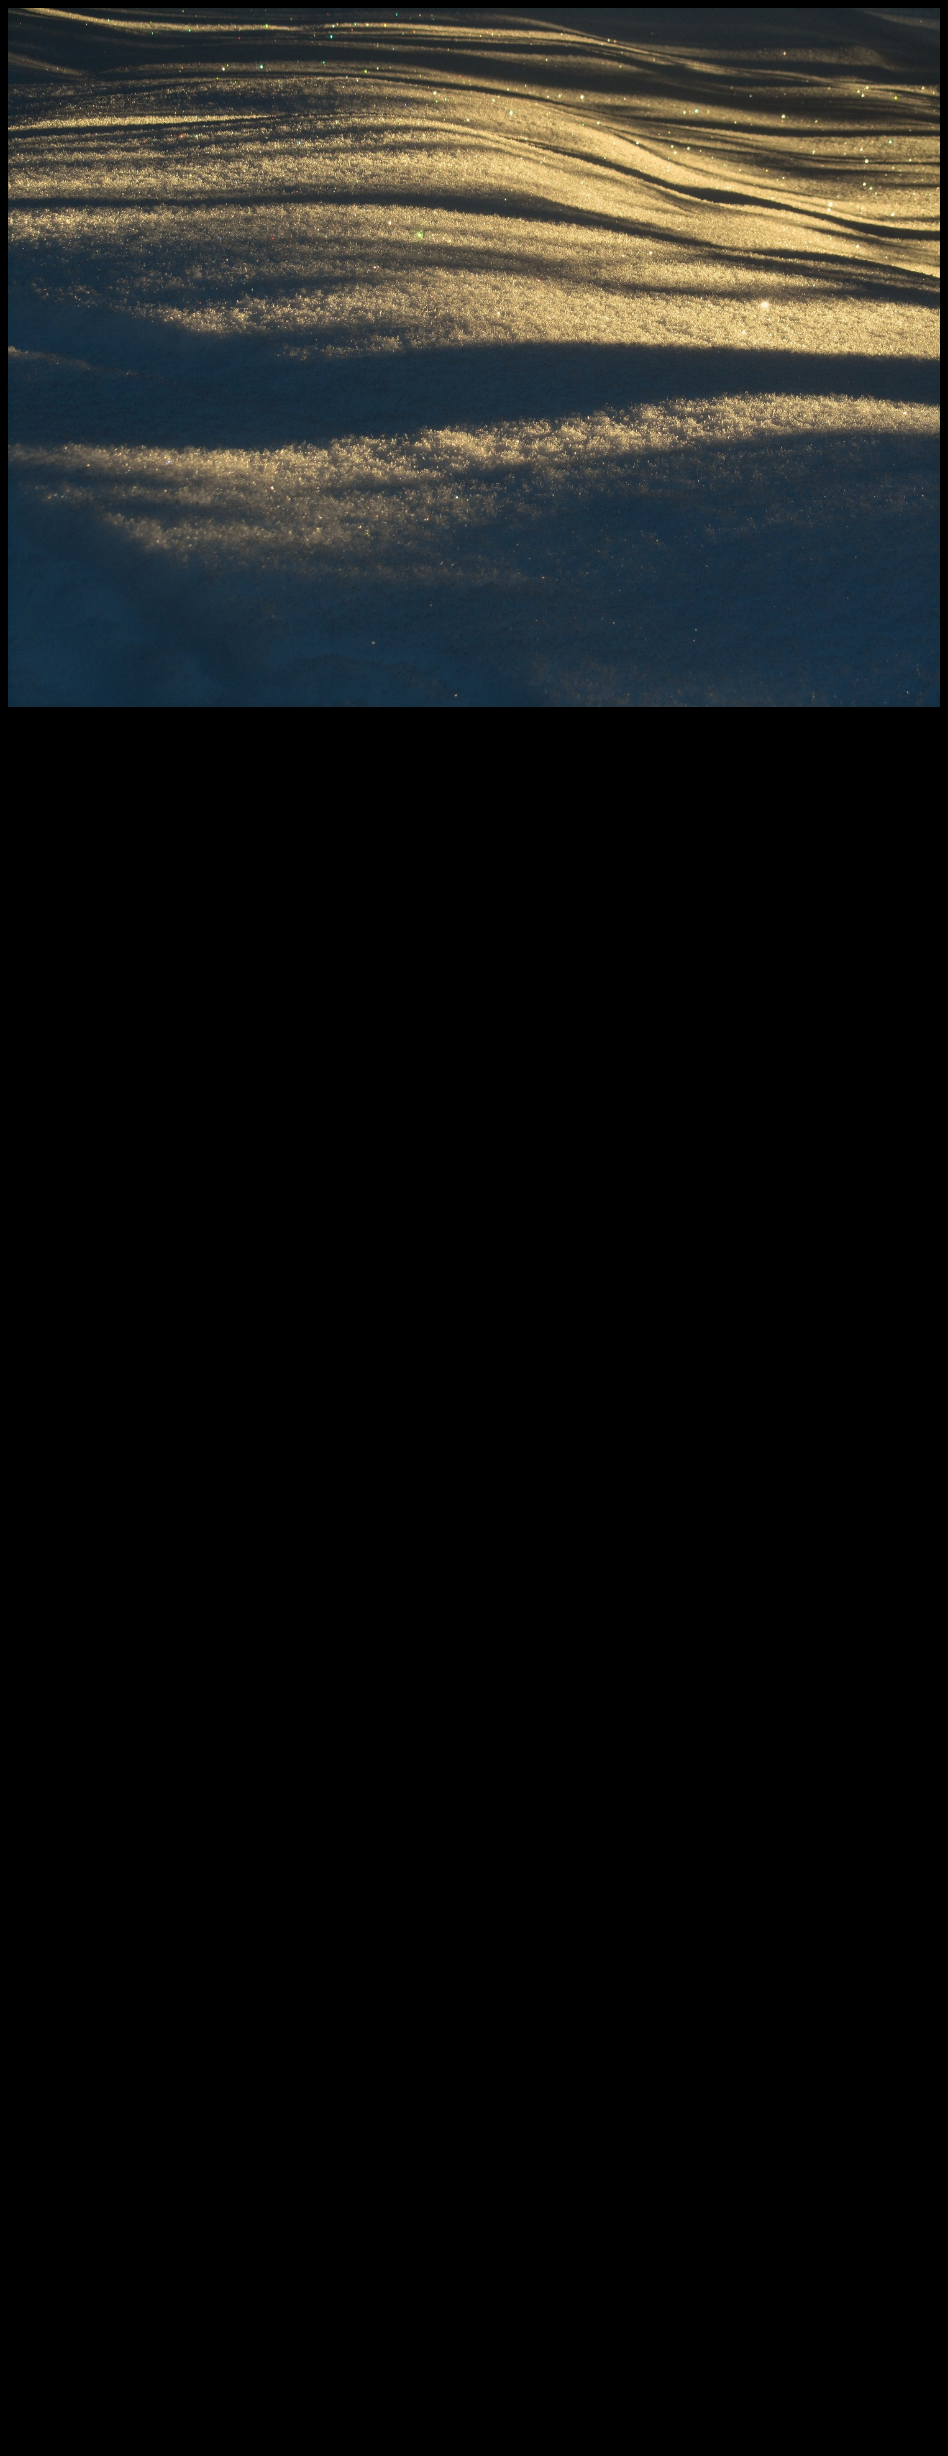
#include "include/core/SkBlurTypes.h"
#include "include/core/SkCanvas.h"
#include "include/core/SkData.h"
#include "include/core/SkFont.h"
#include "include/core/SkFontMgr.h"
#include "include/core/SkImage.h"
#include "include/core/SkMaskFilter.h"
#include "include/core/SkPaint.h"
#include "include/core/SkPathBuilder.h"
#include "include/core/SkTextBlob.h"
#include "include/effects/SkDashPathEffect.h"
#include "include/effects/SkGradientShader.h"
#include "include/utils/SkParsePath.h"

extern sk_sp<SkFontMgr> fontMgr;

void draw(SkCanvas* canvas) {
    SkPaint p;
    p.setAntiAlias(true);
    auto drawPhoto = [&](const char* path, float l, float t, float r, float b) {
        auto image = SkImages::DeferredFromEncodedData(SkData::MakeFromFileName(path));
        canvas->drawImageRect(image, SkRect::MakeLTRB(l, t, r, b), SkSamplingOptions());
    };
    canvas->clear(0xFF000000);
    drawPhoto("media/1.png", 8, 8, 940, 707);
}
